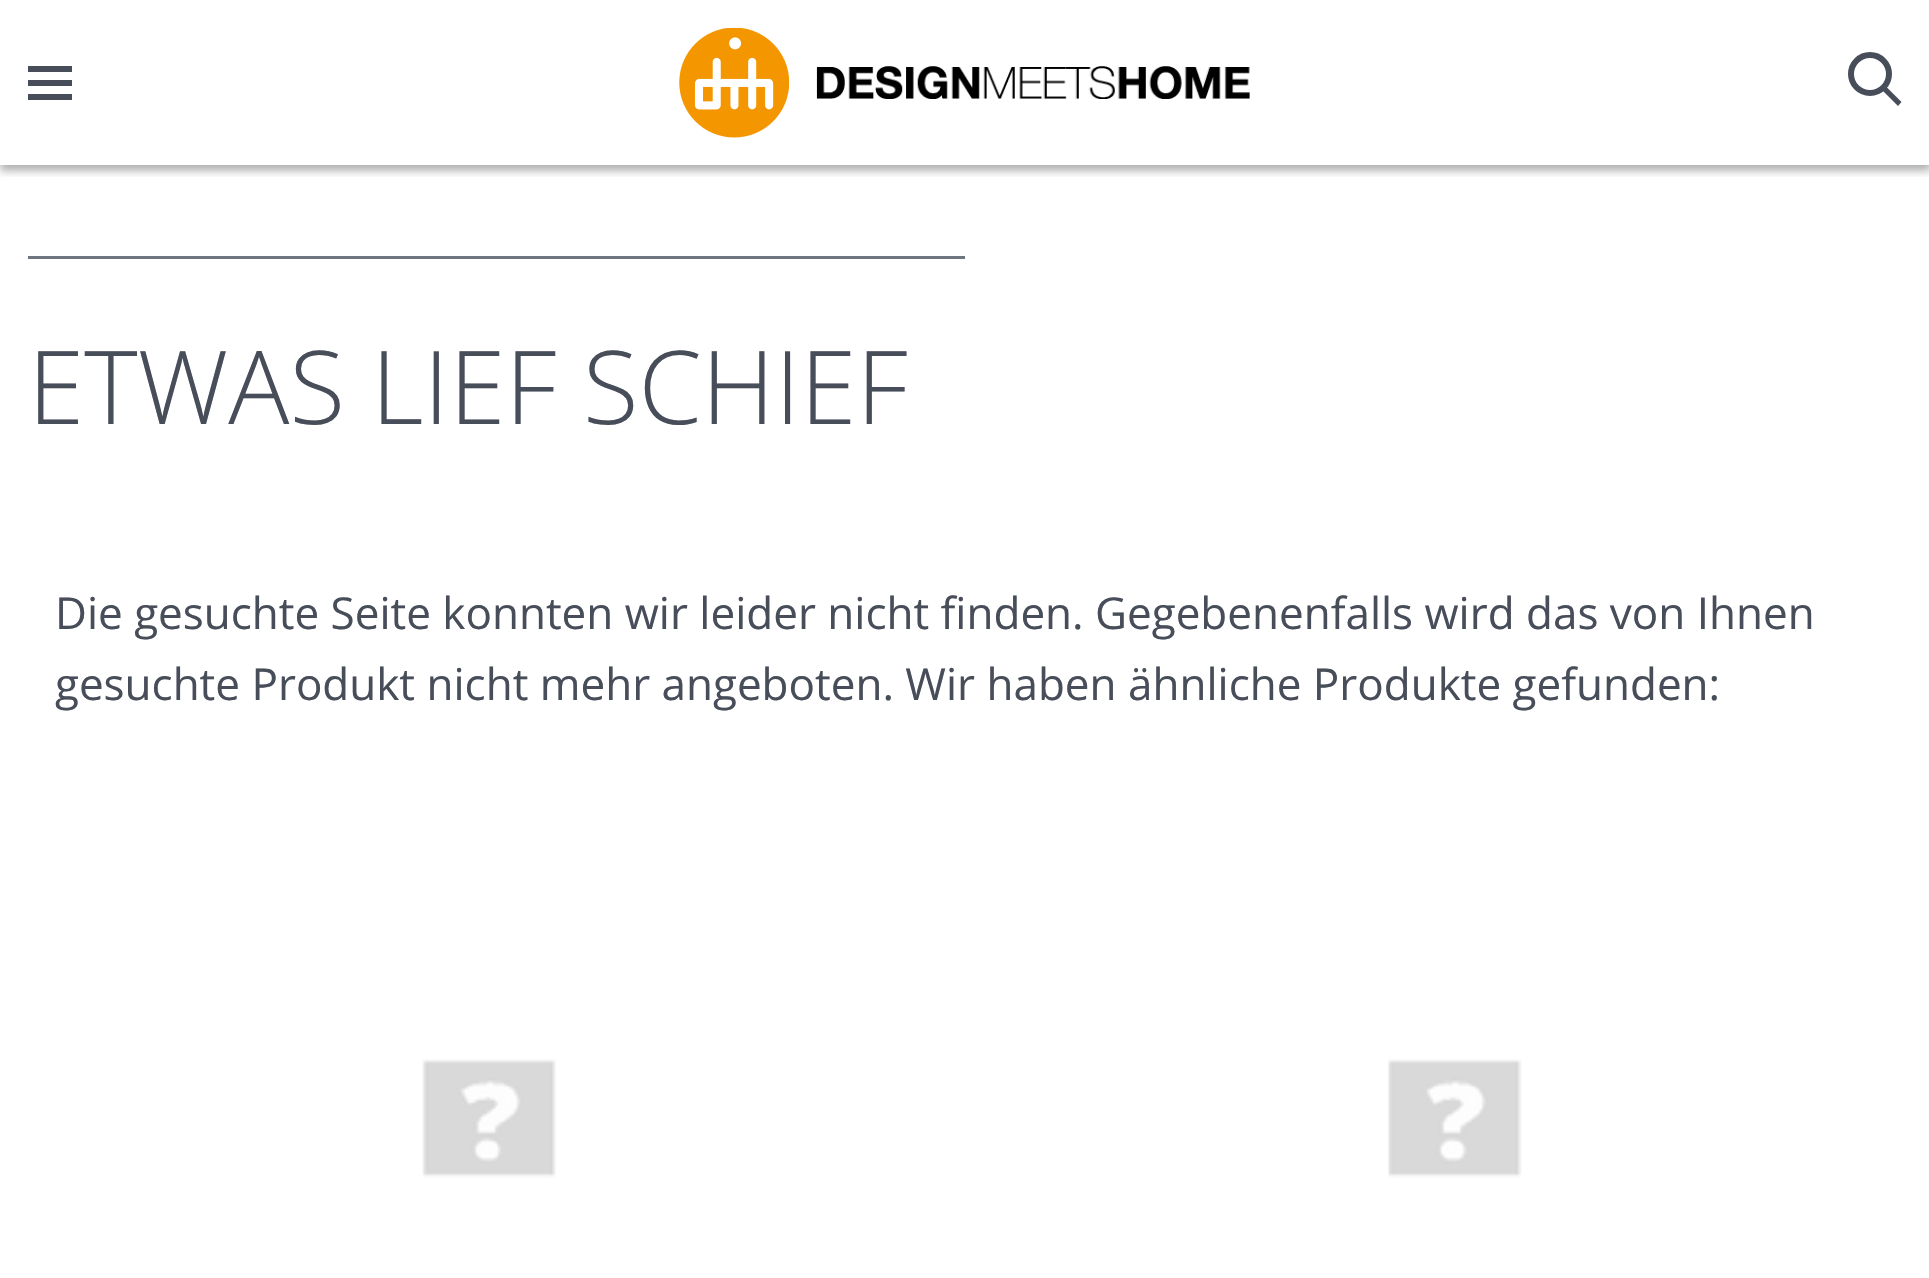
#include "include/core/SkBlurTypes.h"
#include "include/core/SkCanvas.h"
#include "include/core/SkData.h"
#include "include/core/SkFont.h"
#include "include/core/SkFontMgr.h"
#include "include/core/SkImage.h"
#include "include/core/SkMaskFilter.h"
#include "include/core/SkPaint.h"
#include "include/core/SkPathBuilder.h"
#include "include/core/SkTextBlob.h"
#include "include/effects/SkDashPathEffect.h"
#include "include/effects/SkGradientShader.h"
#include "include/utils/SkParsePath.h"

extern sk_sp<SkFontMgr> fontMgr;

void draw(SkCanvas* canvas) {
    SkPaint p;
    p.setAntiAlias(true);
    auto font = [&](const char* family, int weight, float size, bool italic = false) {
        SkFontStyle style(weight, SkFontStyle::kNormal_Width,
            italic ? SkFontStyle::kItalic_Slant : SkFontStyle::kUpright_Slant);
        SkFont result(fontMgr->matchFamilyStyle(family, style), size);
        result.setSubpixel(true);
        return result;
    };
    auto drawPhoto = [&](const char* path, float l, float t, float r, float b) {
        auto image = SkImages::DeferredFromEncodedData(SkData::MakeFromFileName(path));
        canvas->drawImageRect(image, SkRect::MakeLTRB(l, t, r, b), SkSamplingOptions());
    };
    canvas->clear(0xFFFFFFFF);
    canvas->save();
    canvas->clipRect(SkRect::MakeLTRB(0, 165, 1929, 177));
    p.setColor(0x4D000000);
    p.setMaskFilter(SkMaskFilter::MakeBlur(kNormal_SkBlurStyle, 4));
    canvas->drawRect(SkRect::MakeLTRB(0, 6, 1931, 171), p);
    p.setMaskFilter(nullptr);
    canvas->restore();
    {
        const struct { float l, t, r, b; SkColor color; } items[] = {
            {28, 80, 72, 86, 0xFF484D5A},
            {28, 66, 72, 72, 0xFF484D5A},
            {28, 94, 72, 100, 0xFF484D5A},
        };
        for (auto [l, t, r, b, color] : items) {
            p.setColor(color);
            canvas->drawRect(SkRect::MakeLTRB(l, t, r, b), p);
        }
    }
    drawPhoto("media/1.png", 679, 28, 789, 138);
    drawPhoto("media/2.png", 816, 66, 1250, 99);
    p.setStyle(SkPaint::kStroke_Style);
    p.setStrokeWidth(6);
    canvas->drawCircle(1870, 74, 19, p);
    p.setStyle(SkPaint::kFill_Style);
    canvas->drawPath(SkPathBuilder().moveTo(1886, 86.5f).lineTo(1901.5f, 102).lineTo(1898, 106).lineTo(1882.5f, 90.5f).close().detach(), p);
    p.setColor(0xFF6F757F);
    canvas->drawRect(SkRect::MakeLTRB(28, 256, 965, 259), p);
    auto font1 = font("Open Sans", 300, 101.75f);
    p.setColor(0xFF484D5A);
    canvas->drawString("ETWAS LIEF SCHIEF", 28, 424, font1, p);
    auto font2 = font("Open Sans", 400, 44);
    canvas->drawString("Die gesuchte Seite konnten wir leider nicht finden. Gegebenenfalls wird das von Ihnen", 55, 629, font2, p);
    canvas->drawString("gesuchte Produkt nicht mehr angeboten. Wir haben ähnliche Produkte gefunden:", 55, 700, font2, p);
    drawPhoto("media/3.png", 422, 1059, 556, 1178);
    drawPhoto("media/4.png", 1388, 1059, 1522, 1178);
}
